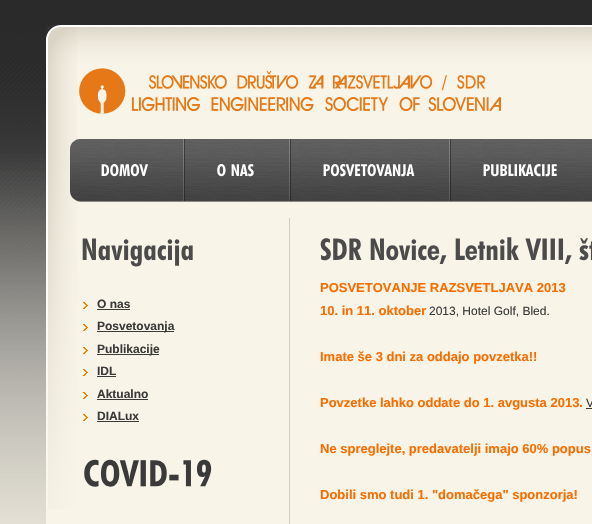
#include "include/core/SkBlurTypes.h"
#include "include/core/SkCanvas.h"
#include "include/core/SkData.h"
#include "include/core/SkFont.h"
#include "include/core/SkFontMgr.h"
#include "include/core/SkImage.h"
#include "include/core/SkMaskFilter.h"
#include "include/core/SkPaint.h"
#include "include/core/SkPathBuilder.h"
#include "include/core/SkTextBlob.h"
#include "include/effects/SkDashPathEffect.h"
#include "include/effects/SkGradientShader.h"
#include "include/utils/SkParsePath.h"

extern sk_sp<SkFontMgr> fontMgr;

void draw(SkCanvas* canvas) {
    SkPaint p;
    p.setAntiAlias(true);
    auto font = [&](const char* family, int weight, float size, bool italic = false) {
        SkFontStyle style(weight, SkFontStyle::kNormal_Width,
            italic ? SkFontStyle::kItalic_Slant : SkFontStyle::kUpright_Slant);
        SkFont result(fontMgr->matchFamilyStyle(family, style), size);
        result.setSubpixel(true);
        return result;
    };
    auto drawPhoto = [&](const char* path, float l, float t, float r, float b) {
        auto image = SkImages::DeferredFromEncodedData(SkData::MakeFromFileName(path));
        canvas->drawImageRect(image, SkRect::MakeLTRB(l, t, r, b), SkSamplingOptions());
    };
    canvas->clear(0xFFFFFFFF);
    drawPhoto("media/1.png", 0, 0, 592, 524);
    drawPhoto("media/2.png", 46, 25, 592, 524);
    drawPhoto("media/3.png", 46, 25, 77, 509);
    drawPhoto("media/4.png", 79, 68, 501, 114);
    drawPhoto("media/5.png", 81, 139, 592, 202);
    drawPhoto("media/6.png", 70, 139, 81, 202);
    drawPhoto("media/7.png", 101, 164, 148, 177);
    drawPhoto("media/8.png", 183, 139, 185, 201);
    drawPhoto("media/9.png", 217, 164, 226, 177);
    drawPhoto("media/10.png", 231, 164, 254, 177);
    drawPhoto("media/8.png", 289, 139, 291, 201);
    drawPhoto("media/11.png", 323, 164, 415, 177);
    drawPhoto("media/8.png", 449, 139, 451, 201);
    drawPhoto("media/12.png", 483, 164, 557, 177);
    p.setColor(0xFFD0CDC3);
    canvas->drawRect(SkRect::MakeLTRB(289, 218, 290, 524), p);
    drawPhoto("media/13.png", 82, 238, 193, 267);
    drawPhoto("media/14.png", 83, 302, 88, 309);
    auto font1 = font("Liberation Sans", 700, 12);
    p.setColor(0xFF3A3A3A);
    canvas->drawString("O nas", 97, 308, font1, p);
    canvas->drawRect(SkRect::MakeLTRB(97, 309, 130, 310), p);
    drawPhoto("media/14.png", 83, 324, 88, 331);
    canvas->drawRect(SkRect::MakeLTRB(97, 331, 174, 332), p);
    canvas->drawString("Posvetovanja", 97, 330, font1, p);
    drawPhoto("media/14.png", 83, 347, 88, 354);
    canvas->drawRect(SkRect::MakeLTRB(97, 354, 159, 355), p);
    canvas->drawString("Publikacije", 97, 353, font1, p);
    drawPhoto("media/14.png", 83, 369, 88, 376);
    canvas->drawString("IDL", 97, 375, font1, p);
    canvas->drawRect(SkRect::MakeLTRB(97, 376, 116, 377), p);
    drawPhoto("media/14.png", 83, 392, 88, 399);
    canvas->drawString("Aktualno", 97, 398, font1, p);
    canvas->drawRect(SkRect::MakeLTRB(97, 399, 148, 400), p);
    drawPhoto("media/14.png", 83, 414, 88, 421);
    canvas->drawString("DIALux", 97, 420, font1, p);
    canvas->drawRect(SkRect::MakeLTRB(97, 421, 139, 422), p);
    drawPhoto("media/15.png", 84, 459, 212, 487);
    drawPhoto("media/16.png", 320, 238, 362, 261);
    drawPhoto("media/17.png", 370, 238, 447, 264);
    drawPhoto("media/18.png", 455, 237, 519, 261);
    drawPhoto("media/19.png", 525, 238, 572, 264);
    drawPhoto("media/20.png", 579, 238, 592, 261);
    auto font2 = font("Liberation Sans", 700, 13);
    p.setColor(0xFFF96D00);
    canvas->drawString("POSVETOVANJE RAZSVETLJAVA 2013", 320, 292, font2, p);
    canvas->drawString("10. in 11. oktober", 320, 315, font2, p);
    auto font3 = font("Liberation Sans", 400, 12);
    p.setColor(0xFF3A3A3A);
    canvas->drawString("2013, Hotel Golf, Bled.", 429, 315, font3, p);
    p.setColor(0xFFF96D00);
    canvas->drawString("Imate še 3 dni za oddajo povzetka!!", 320, 361, font2, p);
    canvas->drawString("Povzetke lahko oddate do 1. avgusta 2013.", 320, 407, font2, p);
    p.setColor(0xFF3A3A3A);
    canvas->drawString("V", 586, 407, font3, p);
    canvas->drawRect(SkRect::MakeLTRB(586, 408, 592, 409), p);
    p.setColor(0xFFF96D00);
    canvas->drawString("Ne spreglejte, predavatelji imajo 60% popus", 320, 453, font2, p);
    canvas->drawString("Dobili smo tudi 1. \"domačega\" sponzorja!", 320, 499, font2, p);
}
